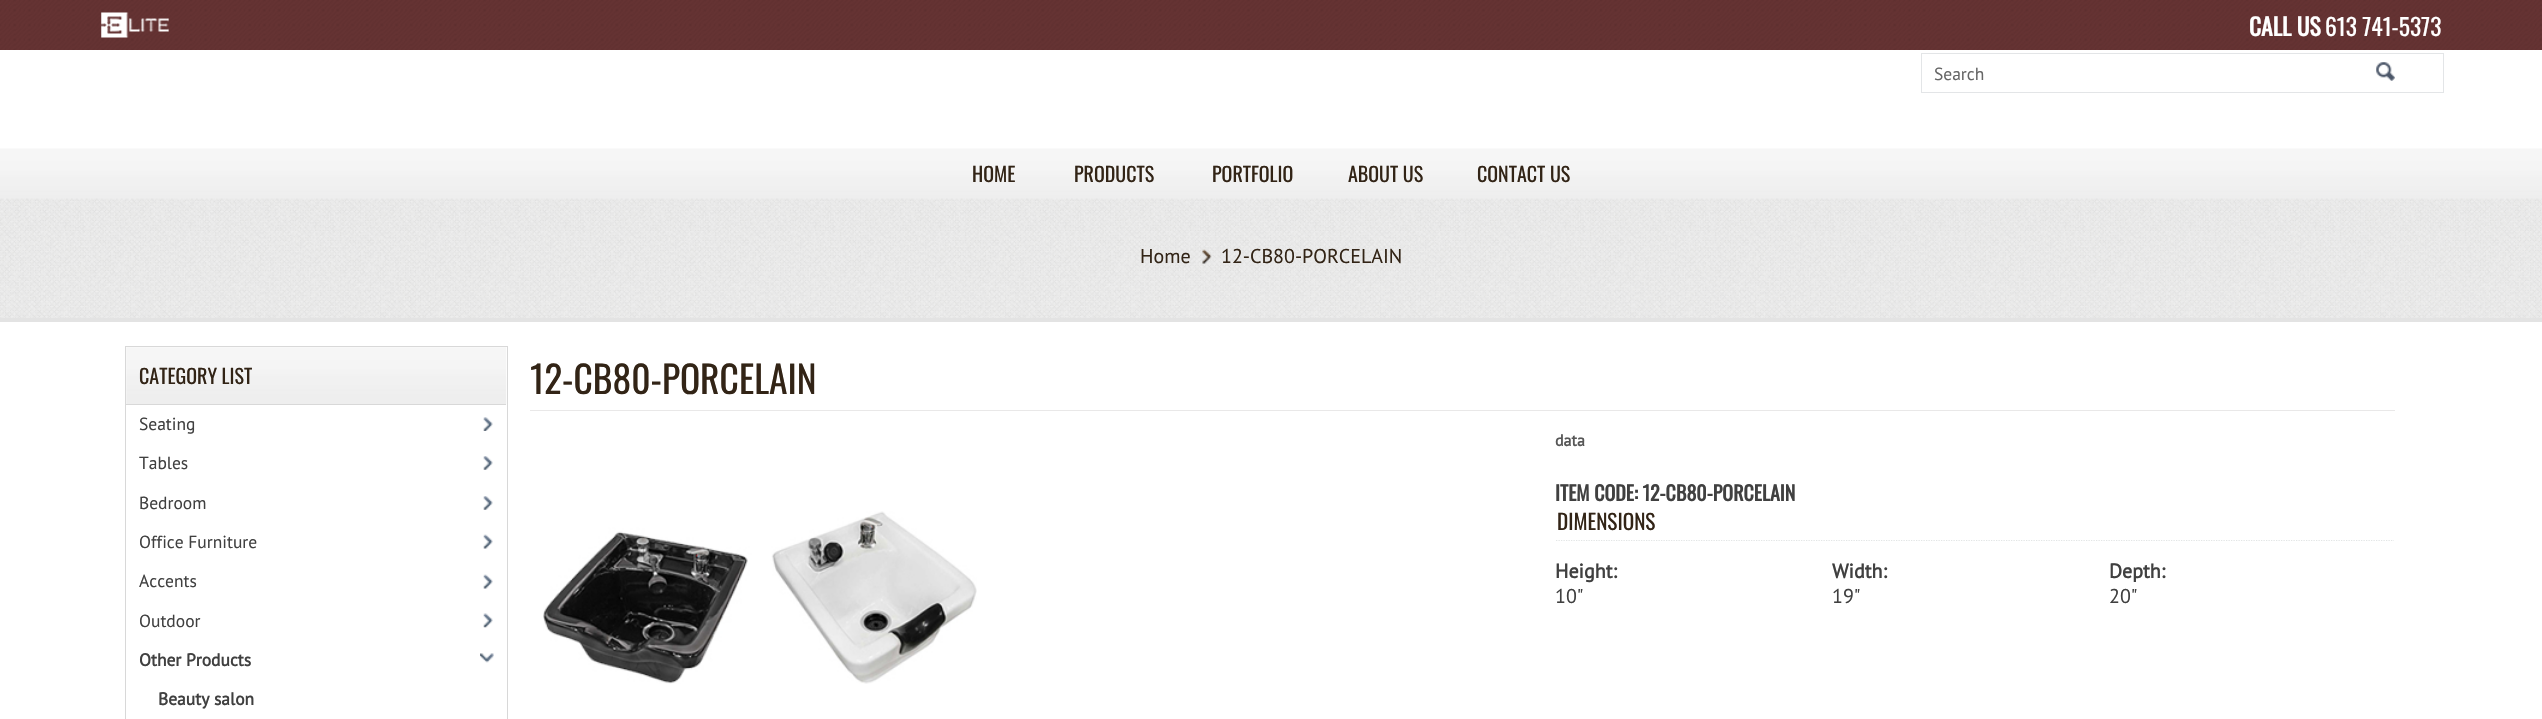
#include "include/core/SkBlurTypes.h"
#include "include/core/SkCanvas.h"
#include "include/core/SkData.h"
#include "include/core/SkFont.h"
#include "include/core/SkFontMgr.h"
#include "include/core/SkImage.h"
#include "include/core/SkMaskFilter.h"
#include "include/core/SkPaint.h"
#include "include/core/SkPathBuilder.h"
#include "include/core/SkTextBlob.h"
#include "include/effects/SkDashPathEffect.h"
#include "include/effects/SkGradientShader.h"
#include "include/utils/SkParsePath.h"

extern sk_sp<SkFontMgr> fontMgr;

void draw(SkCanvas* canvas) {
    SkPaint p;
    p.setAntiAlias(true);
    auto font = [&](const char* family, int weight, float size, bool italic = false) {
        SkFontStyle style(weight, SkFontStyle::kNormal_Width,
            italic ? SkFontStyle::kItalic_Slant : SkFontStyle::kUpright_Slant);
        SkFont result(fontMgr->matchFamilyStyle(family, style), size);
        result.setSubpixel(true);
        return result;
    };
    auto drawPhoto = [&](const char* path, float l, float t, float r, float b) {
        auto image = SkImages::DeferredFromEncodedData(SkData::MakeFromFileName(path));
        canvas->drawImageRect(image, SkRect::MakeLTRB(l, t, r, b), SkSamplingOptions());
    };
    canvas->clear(0xFFFFFFFF);
    p.setColor(0xFF663333);
    canvas->drawRect(SkRect::MakeLTRB(0, 0, 2542, 50), p);
    drawPhoto("media/1.png", 0, 0, 2542, 50);
    drawPhoto("media/2.png", 101, 12, 169, 38);
    auto font1 = font("Oswald", 700, 23.5f);
    p.setColor(0xFFFFFFFF);
    canvas->drawString("CALL US", 2249, 36, font1, p);
    auto font2 = font("Oswald", 400, 23.5f);
    canvas->drawString("613 741-5373", 2325, 36, font2, p);
    p.setStyle(SkPaint::kStroke_Style);
    p.setStrokeWidth(1);
    p.setColor(0xFFE3E5E7);
    canvas->drawRect(SkRect::MakeLTRB(1921.5f, 53.5f, 2443.5f, 92.5f), p);
    auto font3 = font("PT Sans", 400, 17.5f);
    p.setStyle(SkPaint::kFill_Style);
    p.setColor(0xFF666666);
    canvas->drawString("Search", 1934, 80, font3, p);
    drawPhoto("media/3.png", 2376, 62, 2395, 81);
    drawPhoto("media/4.png", 0, 148, 2542, 199);
    auto font4 = font("Oswald", 400, 20);
    p.setColor(0xFF322416);
    {
        const struct { const char* s; float x, y; } items[] = {
            {"HOME", 972, 182},
            {"PRODUCTS", 1074, 182},
            {"PORTFOLIO", 1212, 182},
            {"ABOUT US", 1348, 182},
            {"CONTACT US", 1477, 182},
        };
        for (auto [s, x, y] : items) {
            canvas->drawString(s, x, y, font4, p);
        }
    }
    drawPhoto("media/5.png", 0, 198, 2542, 318);
    p.setColor(0xFFE3E3E3);
    canvas->drawRect(SkRect::MakeLTRB(0, 318, 2542, 322), p);
    auto font5 = font("PT Sans", 400, 20);
    p.setColor(0xFF322416);
    canvas->drawString("Home", 1140, 263, font5, p);
    drawPhoto("media/6.png", 1202, 249, 1212, 264);
    canvas->drawString("12-CB80-PORCELAIN", 1221, 263, font5, p);
    p.setStyle(SkPaint::kStroke_Style);
    p.setColor(0xFFD8D8D8);
    canvas->drawRect(SkRect::MakeLTRB(125.5f, 346.5f, 507.5f, 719.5f), p);
    drawPhoto("media/7.png", 126, 347, 507, 405);
    p.setStyle(SkPaint::kFill_Style);
    canvas->drawRect(SkRect::MakeLTRB(126, 404, 506, 405), p);
    p.setColor(0xFF322416);
    canvas->drawString("CATEGORY LIST", 139, 384, font4, p);
    drawPhoto("media/8.png", 483, 417, 493, 431);
    p.setColor(0xFF404040);
    canvas->drawString("Seating", 139, 430, font3, p);
    drawPhoto("media/9.png", 483, 456, 493, 470);
    canvas->drawString("Tables", 139, 469, font3, p);
    drawPhoto("media/9.png", 483, 496, 493, 510);
    canvas->drawString("Bedroom", 139, 509, font3, p);
    drawPhoto("media/10.png", 483, 534, 493, 549);
    canvas->drawString("Office Furniture", 139, 548, font3, p);
    drawPhoto("media/10.png", 483, 574, 493, 589);
    canvas->drawString("Accents", 139, 587, font3, p);
    drawPhoto("media/11.png", 483, 613, 493, 628);
    canvas->drawString("Outdoor", 139, 627, font3, p);
    drawPhoto("media/12.png", 480, 653, 494, 663);
    auto font6 = font("PT Sans", 700, 17.5f);
    canvas->drawString("Other Products", 139, 666, font6, p);
    canvas->drawString("Beauty salon", 158, 705, font6, p);
    p.setColor(0xFFE9E8E8);
    canvas->drawRect(SkRect::MakeLTRB(530, 410, 2395, 411), p);
    auto font7 = font("Oswald", 400, 37.5f);
    p.setColor(0xFF322416);
    canvas->drawString("12-CB80-PORCELAIN", 530, 394, font7, p);
    drawPhoto("media/13.png", 543, 511, 977, 684);
    auto font8 = font("PT Sans", 700, 16);
    p.setColor(0xFF575757);
    canvas->drawString("data", 1555, 446, font8, p);
    auto font9 = font("Oswald", 700, 20);
    p.setColor(0xFF404040);
    canvas->drawString("ITEM CODE: 12-CB80-PORCELAIN", 1555, 501, font9, p);
    p.setStyle(SkPaint::kStroke_Style);
    p.setStrokeWidth(1.2f);
    p.setColor(0xFFE2E5E5);
    p.setPathEffect(SkDashPathEffect::Make({{1.25f, 1.25f}}, 0));
    canvas->drawPath(SkPathBuilder().moveTo(1556, 540.5f).lineTo(2394, 540.5f).detach(), p);
    p.setPathEffect(nullptr);
    auto font10 = font("Oswald", 400, 21.25f);
    p.setStyle(SkPaint::kFill_Style);
    p.setColor(0xFF322416);
    canvas->drawString("DIMENSIONS", 1557, 530, font10, p);
    auto font11 = font("PT Sans", 700, 20);
    p.setColor(0xFF404040);
    canvas->drawString("Height:", 1555, 578, font11, p);
    canvas->drawString("10\"", 1555, 603, font5, p);
    canvas->drawString("Width:", 1832, 578, font11, p);
    canvas->drawString("19\"", 1832, 603, font5, p);
    canvas->drawString("Depth:", 2109, 578, font11, p);
    canvas->drawString("20\"", 2109, 603, font5, p);
}
